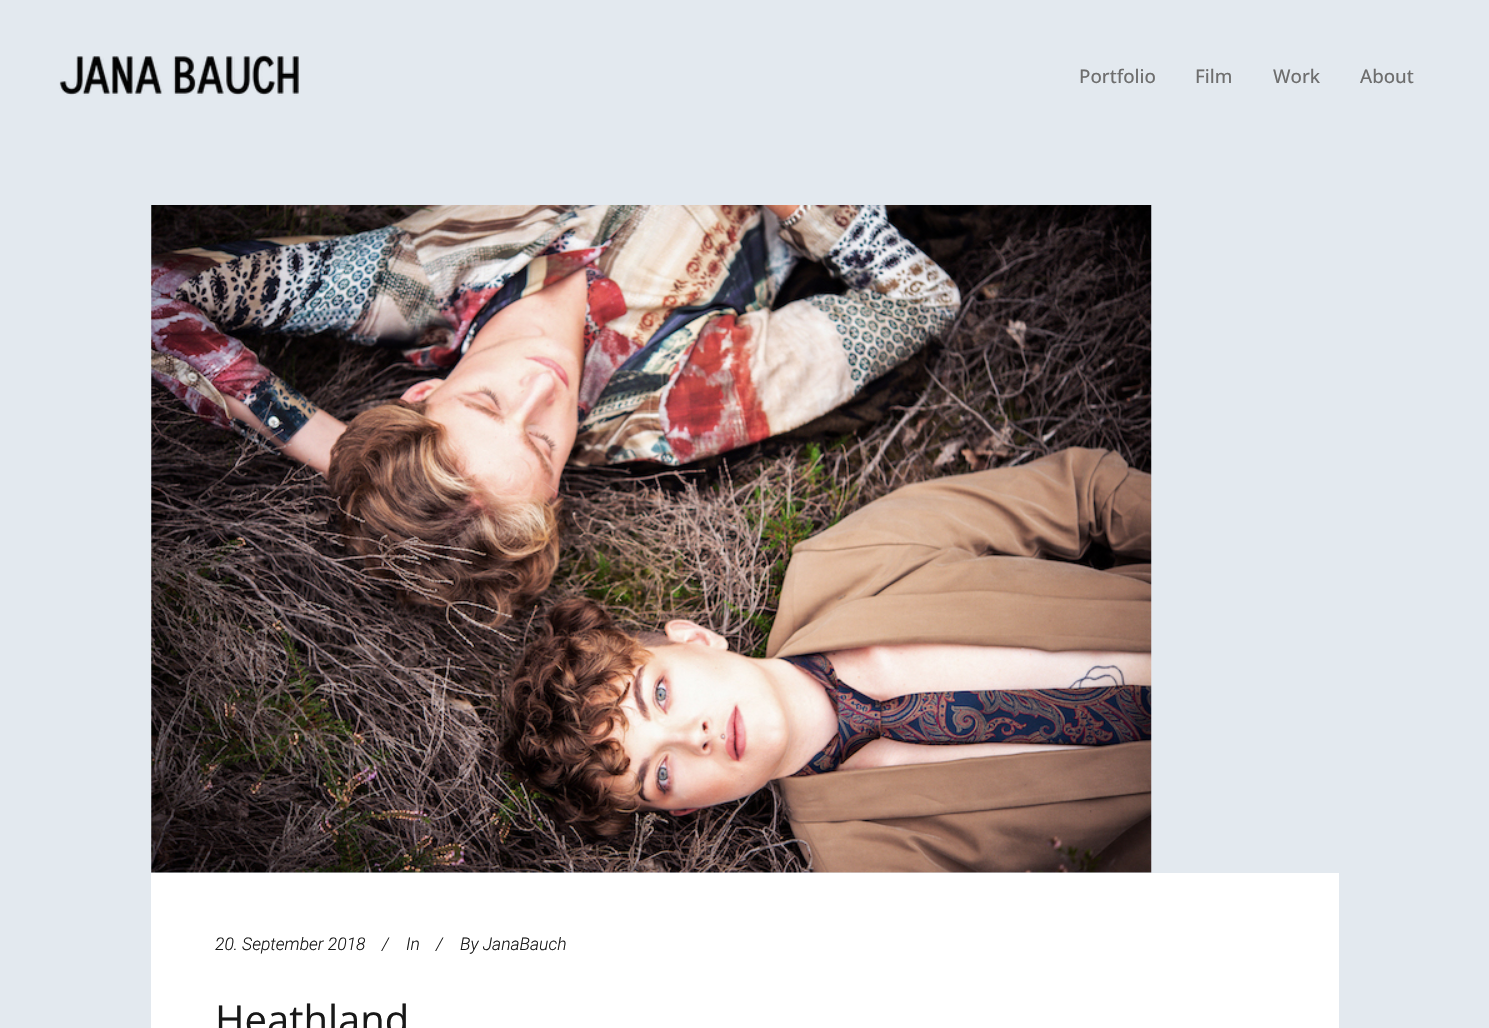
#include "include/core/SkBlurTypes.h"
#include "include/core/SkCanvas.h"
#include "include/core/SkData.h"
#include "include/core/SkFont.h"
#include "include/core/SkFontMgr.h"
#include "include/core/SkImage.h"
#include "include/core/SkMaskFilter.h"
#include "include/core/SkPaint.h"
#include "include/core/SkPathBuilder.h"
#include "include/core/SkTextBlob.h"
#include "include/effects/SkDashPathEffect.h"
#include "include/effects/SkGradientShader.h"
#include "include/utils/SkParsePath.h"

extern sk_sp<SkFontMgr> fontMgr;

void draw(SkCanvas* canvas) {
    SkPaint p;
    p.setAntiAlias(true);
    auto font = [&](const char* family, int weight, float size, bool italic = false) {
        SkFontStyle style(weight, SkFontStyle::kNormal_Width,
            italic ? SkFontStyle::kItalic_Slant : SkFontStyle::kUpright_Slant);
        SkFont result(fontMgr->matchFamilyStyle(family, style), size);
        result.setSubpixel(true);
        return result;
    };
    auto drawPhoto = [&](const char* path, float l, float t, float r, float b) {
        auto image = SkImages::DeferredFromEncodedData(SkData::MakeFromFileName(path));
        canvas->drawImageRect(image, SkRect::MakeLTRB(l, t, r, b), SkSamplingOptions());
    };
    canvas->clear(0xFFE3E9EF);
    drawPhoto("media/1.png", 59, 55, 299, 96);
    auto font1 = font("Open Sans", 500, 18.75f);
    p.setColor(0xFF6E6E6E);
    {
        const struct { const char* s; float x, y; } items[] = {
            {"Portfolio", 1079, 83},
            {"Film", 1195, 83},
            {"Work", 1273, 83},
            {"About", 1360, 83},
        };
        for (auto [s, x, y] : items) {
            canvas->drawString(s, x, y, font1, p);
        }
    }
    drawPhoto("media/2.png", 151, 205, 1152, 873);
    p.setColor(0xFFFFFFFF);
    canvas->drawRect(SkRect::MakeLTRB(151, 873, 1339, 1028), p);
    auto font2 = font("Roboto", 300, 17.5f, true);
    p.setColor(0xFF181818);
    {
        const struct { const char* s; float x, y; } items[] = {
            {"20. September 2018", 215, 950},
            {"/", 382, 950},
            {"In", 406, 950},
            {"/", 436, 950},
            {"By JanaBauch", 460, 950},
        };
        for (auto [s, x, y] : items) {
            canvas->drawString(s, x, y, font2, p);
        }
    }
    auto font3 = font("Open Sans", 400, 40);
    canvas->drawString("Heathland", 215, 1034, font3, p);
}
